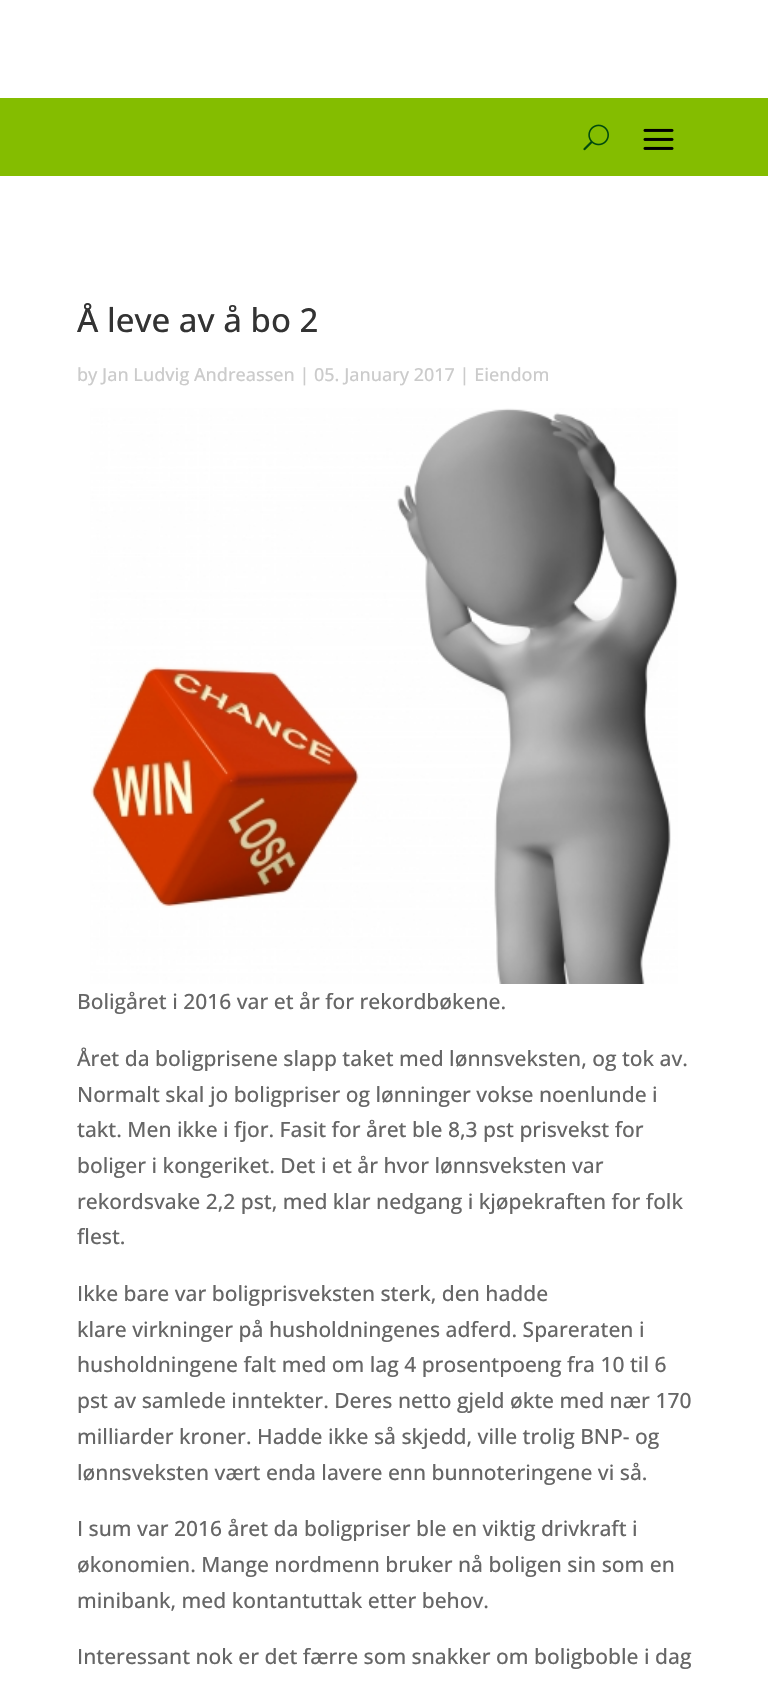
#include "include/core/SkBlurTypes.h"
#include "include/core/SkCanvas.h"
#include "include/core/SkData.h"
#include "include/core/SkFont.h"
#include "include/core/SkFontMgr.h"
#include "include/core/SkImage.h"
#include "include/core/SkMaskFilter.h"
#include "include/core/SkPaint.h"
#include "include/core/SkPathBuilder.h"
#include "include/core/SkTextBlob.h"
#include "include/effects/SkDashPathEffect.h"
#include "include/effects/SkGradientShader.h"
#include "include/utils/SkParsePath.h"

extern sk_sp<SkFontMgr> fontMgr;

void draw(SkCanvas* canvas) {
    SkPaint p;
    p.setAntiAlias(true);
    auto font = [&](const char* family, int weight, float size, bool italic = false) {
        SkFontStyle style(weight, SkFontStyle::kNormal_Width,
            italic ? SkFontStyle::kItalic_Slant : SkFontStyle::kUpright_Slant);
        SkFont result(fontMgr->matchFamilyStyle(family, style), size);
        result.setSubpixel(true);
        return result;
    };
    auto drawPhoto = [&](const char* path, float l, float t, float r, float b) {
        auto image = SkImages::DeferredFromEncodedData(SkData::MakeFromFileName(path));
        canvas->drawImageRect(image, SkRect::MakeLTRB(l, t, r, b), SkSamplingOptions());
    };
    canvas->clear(0xFFFFFFFF);
    p.setColor(0xFF84BD00);
    canvas->drawRect(SkRect::MakeLTRB(0, 98, 768, 176), p);
    drawPhoto("media/1.png", 583, 124, 609, 151);
    drawPhoto("media/2.png", 643, 128, 674, 150);
    auto font1 = font("Open Sans", 500, 33);
    p.setColor(0xFF333333);
    canvas->drawString("Å leve av å bo 2", 77, 332, font1, p);
    auto font2 = font("Open Sans", 500, 18);
    p.setColor(0xFFCBCBCB);
    canvas->drawString("by Jan Ludvig Andreassen | 05. January 2017 | Eiendom", 77, 381, font2, p);
    drawPhoto("media/3.png", 90, 408, 678, 984);
    auto font3 = font("Open Sans", 500, 21);
    p.setColor(0xFF666666);
    {
        const struct { const char* s; float x, y; } items[] = {
            {"Boligåret i 2016 var et år for rekordbøkene.", 77, 1009},
            {"Året da boligprisene slapp taket med lønnsveksten, og tok av.", 77, 1066},
            {"Normalt skal jo boligpriser og lønninger vokse noenlunde i", 77, 1102},
            {"takt. Men ikke i fjor. Fasit for året ble 8,3 pst prisvekst for", 77, 1137},
            {"boliger i kongeriket. Det i et år hvor lønnsveksten var", 77, 1173},
            {"rekordsvake 2,2 pst, med klar nedgang i kjøpekraften for folk", 77, 1209},
            {"flest.", 77, 1244},
            {"Ikke bare var boligprisveksten sterk, den hadde", 77, 1301},
            {"klare virkninger på husholdningenes adferd. Spareraten i", 77, 1337},
            {"husholdningene falt med om lag 4 prosentpoeng fra 10 til 6", 77, 1372},
            {"pst av samlede inntekter. Deres netto gjeld økte med nær 170", 77, 1408},
            {"milliarder kroner. Hadde ikke så skjedd, ville trolig BNP- og", 77, 1444},
            {"lønnsveksten vært enda lavere enn bunnoteringene vi så.", 77, 1480},
            {"I sum var 2016 året da boligpriser ble en viktig drivkraft i", 77, 1536},
            {"økonomien. Mange nordmenn bruker nå boligen sin som en", 77, 1572},
            {"minibank, med kontantuttak etter behov.", 77, 1608},
            {"Interessant nok er det færre som snakker om boligboble i dag", 77, 1664},
        };
        for (auto [s, x, y] : items) {
            canvas->drawString(s, x, y, font3, p);
        }
    }
}
